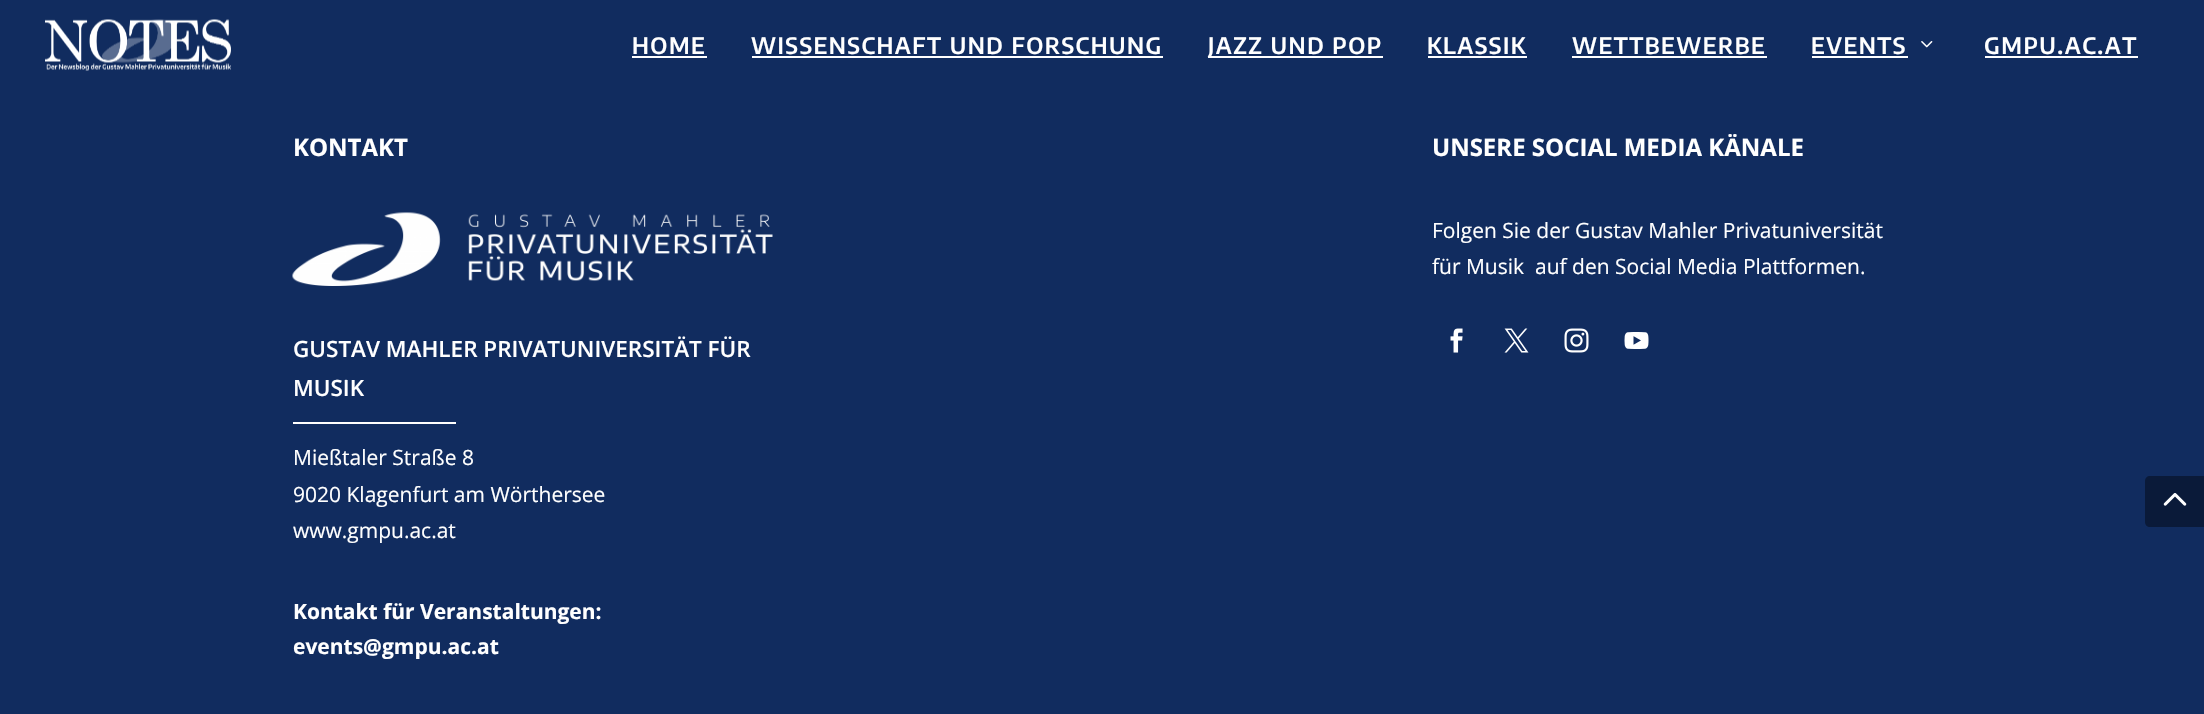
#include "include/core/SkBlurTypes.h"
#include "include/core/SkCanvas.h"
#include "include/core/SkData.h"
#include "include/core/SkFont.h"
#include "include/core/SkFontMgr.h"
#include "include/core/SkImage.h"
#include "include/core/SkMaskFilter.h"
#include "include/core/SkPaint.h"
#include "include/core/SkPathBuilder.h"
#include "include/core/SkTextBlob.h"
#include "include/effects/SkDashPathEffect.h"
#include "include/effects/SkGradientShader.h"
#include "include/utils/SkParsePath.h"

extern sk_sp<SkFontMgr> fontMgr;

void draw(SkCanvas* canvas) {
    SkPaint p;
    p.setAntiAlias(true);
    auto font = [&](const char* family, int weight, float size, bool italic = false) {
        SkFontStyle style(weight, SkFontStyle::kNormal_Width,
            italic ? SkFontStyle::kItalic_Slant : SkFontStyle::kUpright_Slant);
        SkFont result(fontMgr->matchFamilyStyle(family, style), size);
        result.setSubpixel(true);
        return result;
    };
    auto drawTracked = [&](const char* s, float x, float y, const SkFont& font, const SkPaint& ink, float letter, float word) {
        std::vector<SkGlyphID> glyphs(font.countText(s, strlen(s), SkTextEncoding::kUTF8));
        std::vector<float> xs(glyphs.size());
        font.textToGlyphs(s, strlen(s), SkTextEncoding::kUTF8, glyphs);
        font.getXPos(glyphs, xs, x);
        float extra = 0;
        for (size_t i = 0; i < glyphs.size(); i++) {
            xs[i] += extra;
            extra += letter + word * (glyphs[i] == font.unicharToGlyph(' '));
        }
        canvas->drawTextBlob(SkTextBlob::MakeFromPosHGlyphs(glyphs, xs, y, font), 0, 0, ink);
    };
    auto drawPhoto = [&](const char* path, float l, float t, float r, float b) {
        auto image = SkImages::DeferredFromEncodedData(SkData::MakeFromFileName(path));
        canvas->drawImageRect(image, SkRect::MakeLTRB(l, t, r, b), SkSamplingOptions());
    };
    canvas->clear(0xFF112C5F);
    drawPhoto("media/1.png", 45, 19, 231, 71);
    auto font1 = font("Encode Sans Condensed", 100, 22.5f);
    p.setColor(0xFFFFFFFF);
    drawTracked("HOME", 632, 54, font1, p, 1.5f, 0);
    canvas->drawRect(SkRect::MakeLTRB(632, 56, 707, 58), p);
    drawTracked("WISSENSCHAFT UND FORSCHUNG", 751, 54, font1, p, 1.5f, 0);
    canvas->drawRect(SkRect::MakeLTRB(752, 56, 1163, 58), p);
    canvas->drawRect(SkRect::MakeLTRB(1208, 56, 1383, 58), p);
    drawTracked("JAZZ UND POP", 1208, 54, font1, p, 1.5f, 0);
    drawTracked("KLASSIK", 1427, 54, font1, p, 1.5f, 0);
    canvas->drawRect(SkRect::MakeLTRB(1428, 56, 1527, 58), p);
    drawTracked("WETTBEWERBE", 1572, 54, font1, p, 1.5f, 0);
    canvas->drawRect(SkRect::MakeLTRB(1572, 56, 1767, 58), p);
    drawTracked("EVENTS", 1811, 54, font1, p, 1.5f, 0);
    canvas->drawRect(SkRect::MakeLTRB(1812, 56, 1908, 58), p);
    drawPhoto("media/2.png", 1921, 41, 1933, 48);
    drawTracked("GMPU.AC.AT", 1984, 54, font1, p, 1.5f, 0);
    canvas->drawRect(SkRect::MakeLTRB(1985, 56, 2138, 58), p);
    auto font2 = font("Open Sans", 700, 24);
    canvas->drawString("KONTAKT", 293, 156, font2, p);
    drawPhoto("media/3.png", 292, 212, 773, 286);
    auto font3 = font("Open Sans", 600, 22.5f);
    canvas->drawString("GUSTAV MAHLER PRIVATUNIVERSITÄT FÜR", 293, 357, font3, p);
    canvas->drawString("MUSIK", 293, 396, font3, p);
    canvas->drawRect(SkRect::MakeLTRB(293, 422, 456, 424), p);
    auto font4 = font("Open Sans", 400, 21);
    {
        const struct { const char* s; float x, y; } items[] = {
            {"Mießtaler Straße 8", 293, 465},
            {"9020 Klagenfurt am Wörthersee", 293, 502},
            {"www.gmpu.ac.at", 293, 538},
        };
        for (auto [s, x, y] : items) {
            canvas->drawString(s, x, y, font4, p);
        }
    }
    auto font5 = font("Open Sans", 700, 21);
    canvas->drawString("Kontakt für Veranstaltungen:", 293, 619, font5, p);
    canvas->drawString("events@gmpu.ac.at", 293, 654, font5, p);
    canvas->drawString("UNSERE SOCIAL MEDIA KÄNALE", 1432, 156, font2, p);
    canvas->drawString("Folgen Sie der Gustav Mahler Privatuniversität", 1432, 238, font4, p);
    canvas->drawString("für Musik  auf den Social Media Plattformen.", 1432, 274, font4, p);
    drawPhoto("media/4.png", 1450, 328, 1463, 353);
    drawPhoto("media/5.png", 1504, 328, 1529, 353);
    drawPhoto("media/6.png", 1564, 328, 1589, 353);
    drawPhoto("media/7.png", 1624, 332, 1649, 349);
    p.setColor(0xFF0A1A39);
    canvas->drawPath(SkPathBuilder().moveTo(2150, 476).lineTo(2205, 476).lineTo(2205, 527).lineTo(2150, 527).cubicTo(2147, 527, 2145, 525, 2145, 522).lineTo(2145, 481).cubicTo(2145, 478, 2147, 476, 2150, 476).close().detach(), p);
    drawPhoto("media/8.png", 2163, 493, 2187, 506);
}
